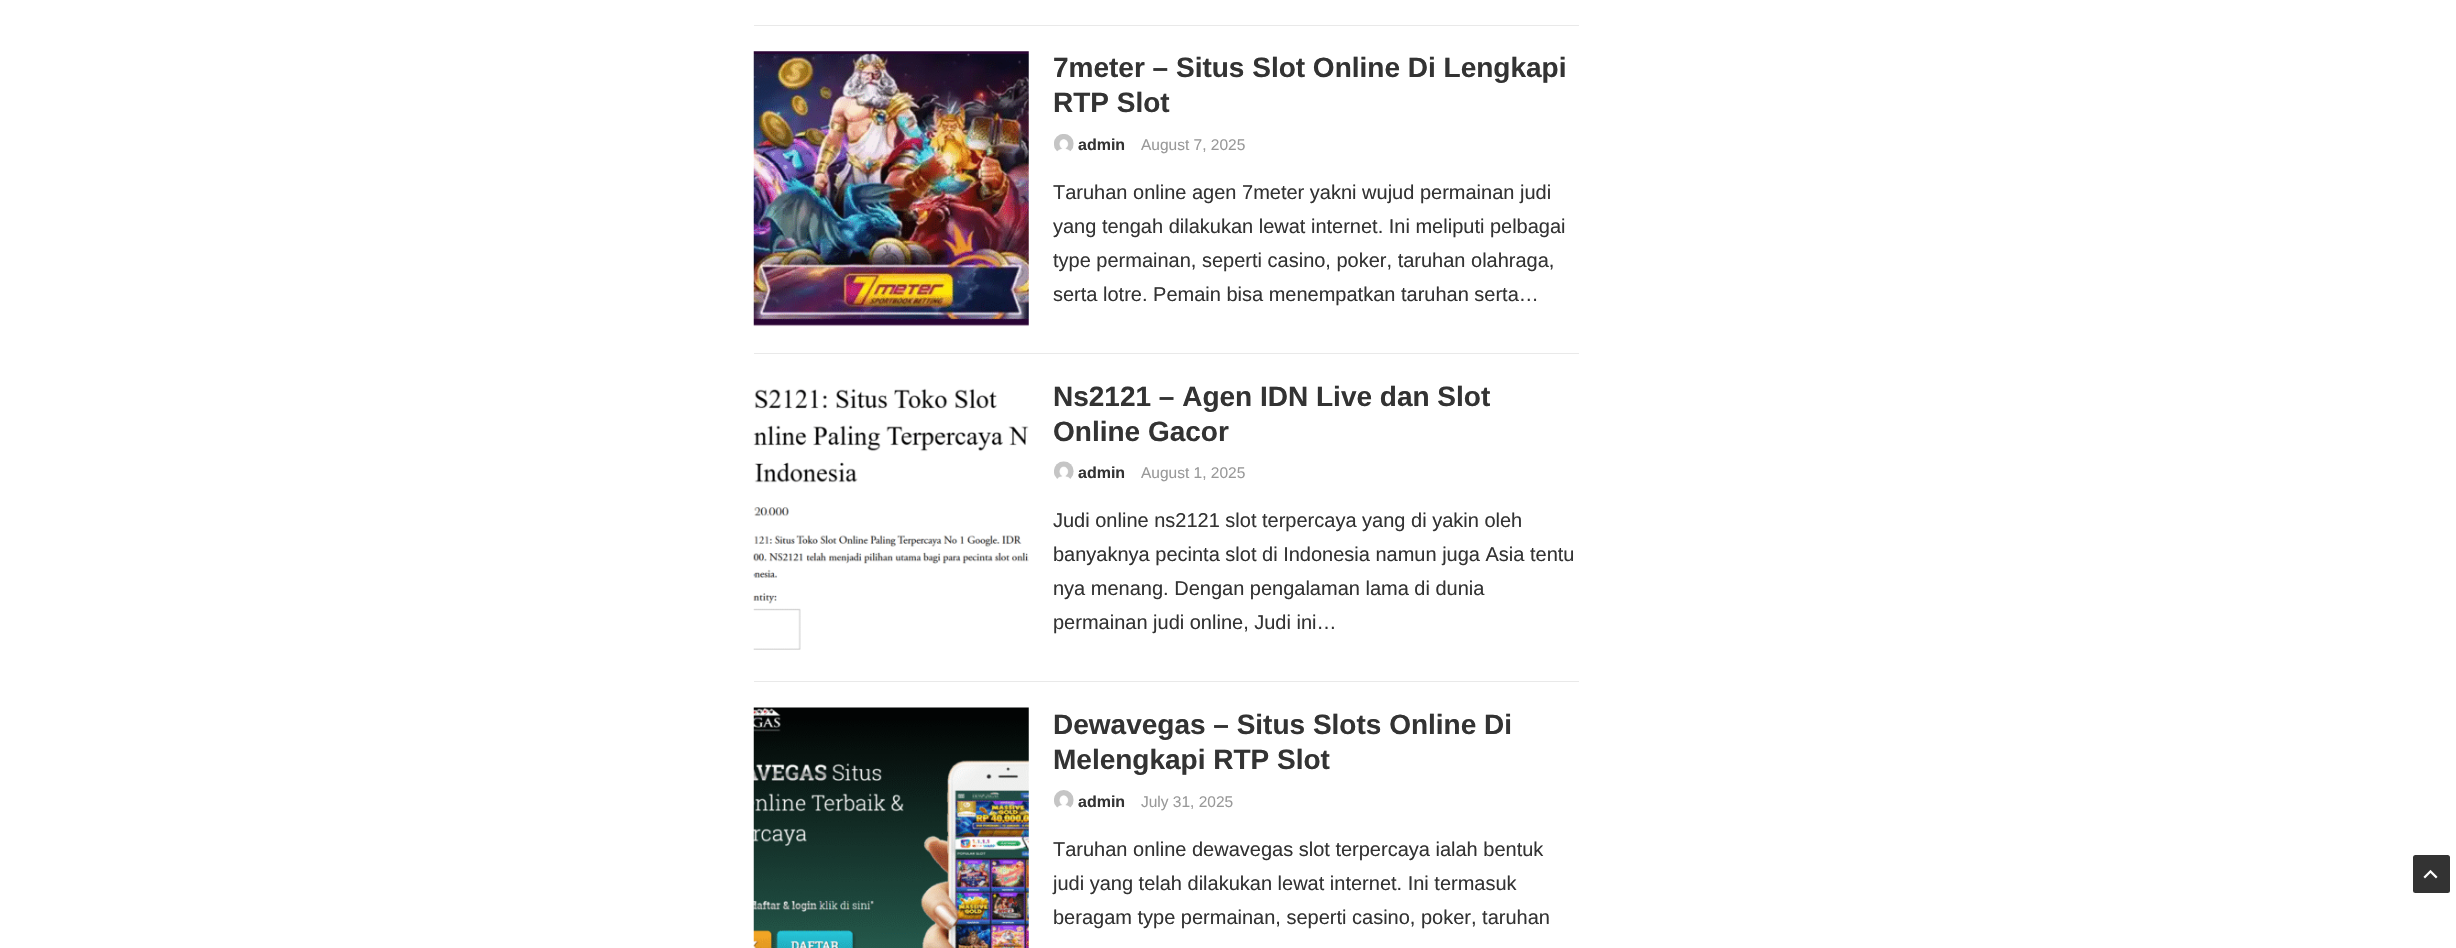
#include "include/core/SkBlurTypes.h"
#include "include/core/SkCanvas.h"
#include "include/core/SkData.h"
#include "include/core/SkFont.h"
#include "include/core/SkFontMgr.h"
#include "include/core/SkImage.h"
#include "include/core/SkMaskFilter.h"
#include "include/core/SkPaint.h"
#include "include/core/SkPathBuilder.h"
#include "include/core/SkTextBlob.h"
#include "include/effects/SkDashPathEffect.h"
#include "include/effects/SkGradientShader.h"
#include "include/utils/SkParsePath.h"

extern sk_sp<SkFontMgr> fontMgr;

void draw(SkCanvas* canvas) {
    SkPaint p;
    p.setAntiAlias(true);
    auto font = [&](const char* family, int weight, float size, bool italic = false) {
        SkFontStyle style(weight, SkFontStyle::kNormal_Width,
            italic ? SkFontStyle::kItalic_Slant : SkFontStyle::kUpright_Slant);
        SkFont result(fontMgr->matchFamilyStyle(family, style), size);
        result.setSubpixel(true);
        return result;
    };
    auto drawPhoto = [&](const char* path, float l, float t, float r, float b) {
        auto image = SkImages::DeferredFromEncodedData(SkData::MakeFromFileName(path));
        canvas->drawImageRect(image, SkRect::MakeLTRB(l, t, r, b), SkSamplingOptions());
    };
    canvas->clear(0xFFFFFFFF);
    p.setColor(0xFFE9E9E9);
    canvas->drawRect(SkRect::MakeLTRB(754, 25, 1579, 26), p);
    canvas->drawRect(SkRect::MakeLTRB(754, 353, 1579, 354), p);
    drawPhoto("media/1.png", 753, 51, 1029, 327);
    auto font1 = font("Liberation Sans", 700, 28);
    p.setColor(0xFF333333);
    canvas->drawString("7meter – Situs Slot Online Di Lengkapi", 1053, 77, font1, p);
    canvas->drawString("RTP Slot", 1053, 112, font1, p);
    drawPhoto("media/2.png", 1054, 134, 1074, 152);
    auto font2 = font("Liberation Sans", 700, 16);
    canvas->drawString("admin", 1078, 150, font2, p);
    auto font3 = font("Liberation Sans", 400, 15.5f);
    p.setColor(0xFF999999);
    canvas->drawString("August 7, 2025", 1141, 150, font3, p);
    auto font4 = font("Liberation Sans", 400, 20);
    p.setColor(0xFF333333);
    {
        const struct { const char* s; float x, y; } items[] = {
            {"Taruhan online agen 7meter yakni wujud permainan judi", 1053, 199},
            {"yang tengah dilakukan lewat internet. Ini meliputi pelbagai", 1053, 233},
            {"type permainan, seperti casino, poker, taruhan olahraga,", 1053, 267},
            {"serta lotre. Pemain bisa menempatkan taruhan serta…", 1053, 301},
        };
        for (auto [s, x, y] : items) {
            canvas->drawString(s, x, y, font4, p);
        }
    }
    p.setColor(0xFFE9E9E9);
    canvas->drawRect(SkRect::MakeLTRB(754, 681, 1579, 682), p);
    drawPhoto("media/3.png", 753, 388, 1029, 650);
    p.setColor(0xFF333333);
    canvas->drawString("Ns2121 – Agen IDN Live dan Slot", 1053, 406, font1, p);
    canvas->drawString("Online Gacor", 1053, 441, font1, p);
    drawPhoto("media/4.png", 1054, 461, 1074, 479);
    canvas->drawString("admin", 1078, 478, font2, p);
    p.setColor(0xFF999999);
    canvas->drawString("August 1, 2025", 1141, 478, font3, p);
    p.setColor(0xFF333333);
    {
        const struct { const char* s; float x, y; } items[] = {
            {"Judi online ns2121 slot terpercaya yang di yakin oleh", 1053, 527},
            {"banyaknya pecinta slot di Indonesia namun juga Asia tentu", 1053, 561},
            {"nya menang. Dengan pengalaman lama di dunia", 1053, 595},
            {"permainan judi online, Judi ini…", 1053, 629},
        };
        for (auto [s, x, y] : items) {
            canvas->drawString(s, x, y, font4, p);
        }
    }
    drawPhoto("media/5.png", 753, 707, 1029, 948);
    canvas->drawString("Dewavegas – Situs Slots Online Di", 1053, 734, font1, p);
    canvas->drawString("Melengkapi RTP Slot", 1053, 769, font1, p);
    drawPhoto("media/6.png", 1054, 790, 1074, 808);
    canvas->drawString("admin", 1078, 807, font2, p);
    p.setColor(0xFF999999);
    canvas->drawString("July 31, 2025", 1141, 807, font3, p);
    p.setColor(0xFF333333);
    {
        const struct { const char* s; float x, y; } items[] = {
            {"Taruhan online dewavegas slot terpercaya ialah bentuk", 1053, 856},
            {"judi yang telah dilakukan lewat internet. Ini termasuk", 1053, 890},
            {"beragam type permainan, seperti casino, poker, taruhan", 1053, 924},
        };
        for (auto [s, x, y] : items) {
            canvas->drawString(s, x, y, font4, p);
        }
    }
    canvas->drawRoundRect(SkRect::MakeLTRB(2413, 855, 2450, 893), 2.5f, 2.5f, p);
    drawPhoto("media/7.png", 2423, 869, 2438, 879);
}
